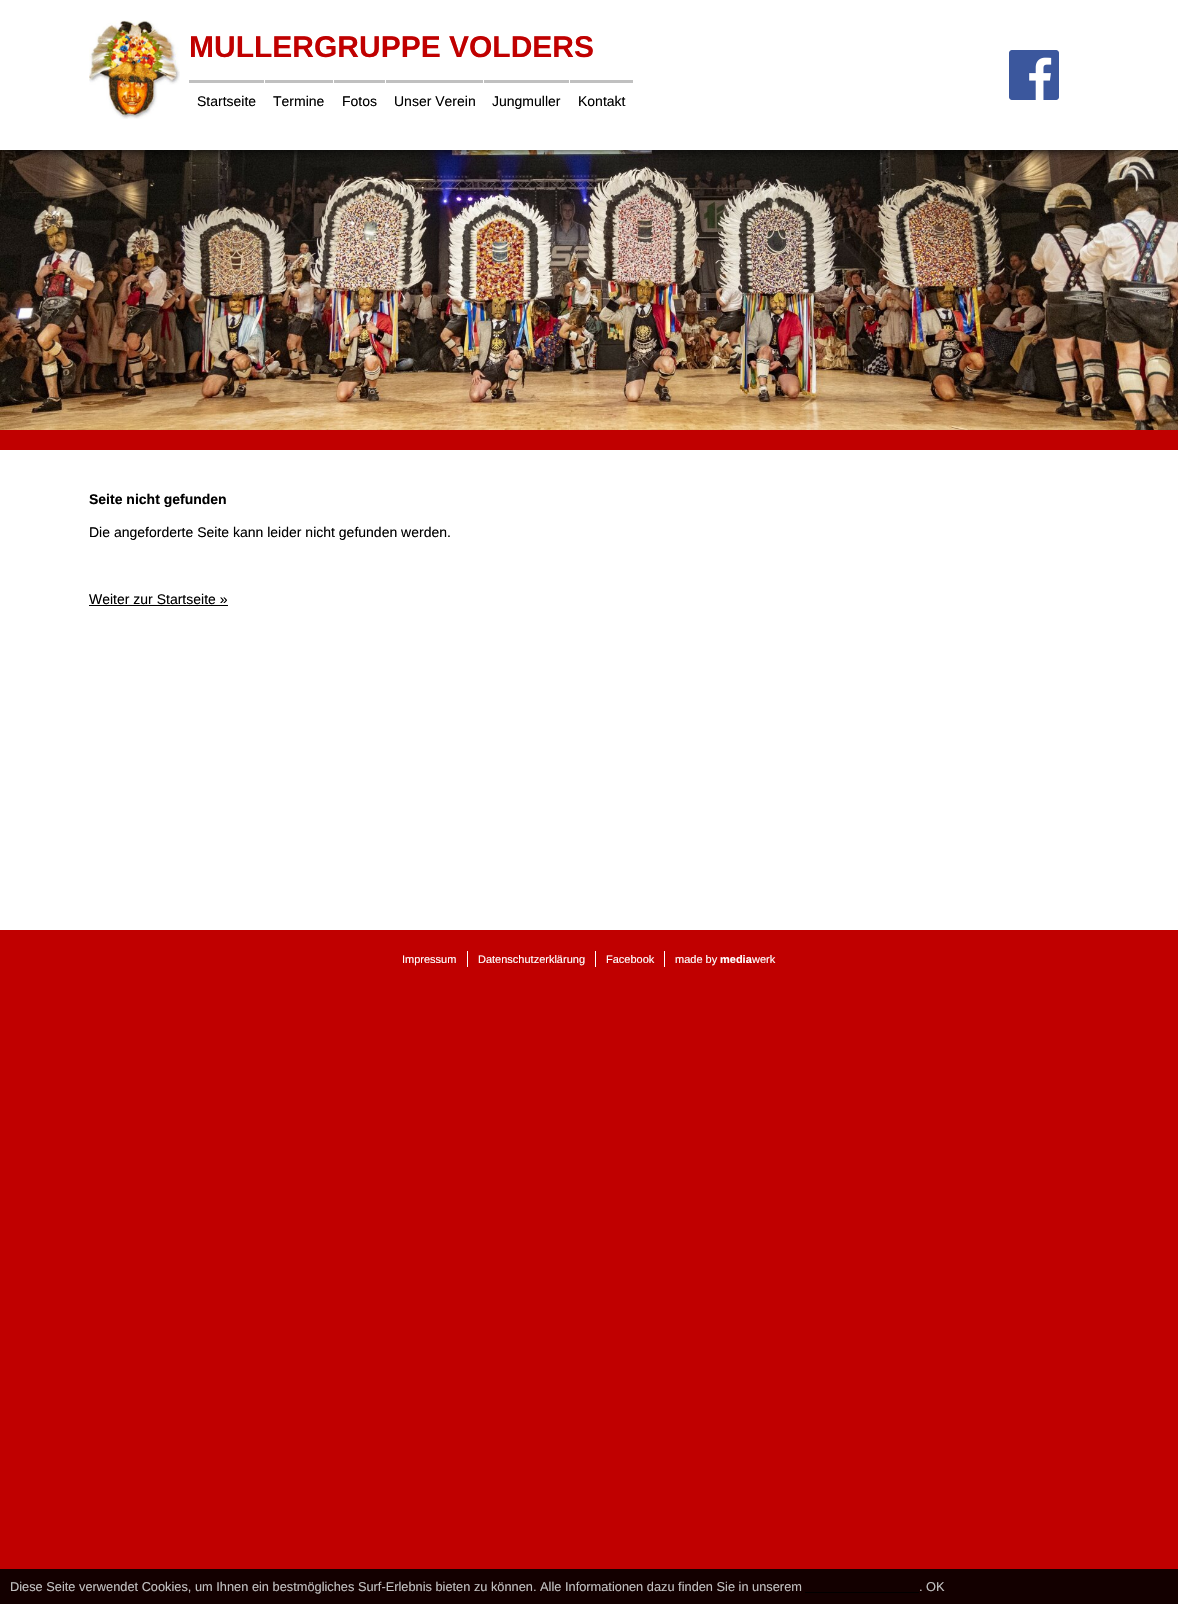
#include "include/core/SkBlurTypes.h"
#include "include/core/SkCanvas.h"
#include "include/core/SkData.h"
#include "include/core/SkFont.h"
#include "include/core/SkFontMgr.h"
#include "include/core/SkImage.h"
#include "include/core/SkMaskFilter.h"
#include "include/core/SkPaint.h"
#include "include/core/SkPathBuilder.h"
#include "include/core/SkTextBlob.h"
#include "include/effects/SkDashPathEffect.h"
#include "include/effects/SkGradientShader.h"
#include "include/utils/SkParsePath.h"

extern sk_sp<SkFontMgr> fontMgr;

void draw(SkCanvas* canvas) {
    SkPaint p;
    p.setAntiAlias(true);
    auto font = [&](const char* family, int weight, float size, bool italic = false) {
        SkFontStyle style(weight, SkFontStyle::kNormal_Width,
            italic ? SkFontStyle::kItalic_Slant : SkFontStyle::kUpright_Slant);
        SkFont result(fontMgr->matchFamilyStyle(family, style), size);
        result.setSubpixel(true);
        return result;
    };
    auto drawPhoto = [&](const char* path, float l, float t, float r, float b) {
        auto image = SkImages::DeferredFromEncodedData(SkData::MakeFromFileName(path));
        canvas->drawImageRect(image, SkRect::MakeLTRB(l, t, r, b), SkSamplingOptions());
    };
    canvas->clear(0xFFC00000);
    drawPhoto("media/1.png", 0, 150, 1178, 430);
    p.setColor(0xFF000000);
    p.setMaskFilter(SkMaskFilter::MakeBlur(kNormal_SkBlurStyle, 5));
    canvas->drawRect(SkRect::MakeLTRB(0, 0, 1178, 150), p);
    p.setMaskFilter(nullptr);
    p.setColor(0xFFFFFFFF);
    canvas->drawRect(SkRect::MakeLTRB(0, 0, 1178, 150), p);
    drawPhoto("media/2.png", 89, 20, 180, 119);
    auto font1 = font("Liberation Sans", 700, 30);
    p.setColor(0xFFC00000);
    canvas->drawString("MULLERGRUPPE VOLDERS", 189, 57, font1, p);
    drawPhoto("media/3.png", 1009, 50, 1059, 100);
    p.setColor(0xFFC0C0C0);
    canvas->drawRect(SkRect::MakeLTRB(189, 80, 264, 83), p);
    auto font2 = font("Liberation Sans", 400, 14);
    p.setColor(0xFF000000);
    canvas->drawString("Startseite", 197, 106, font2, p);
    p.setColor(0xFFC0C0C0);
    canvas->drawRect(SkRect::MakeLTRB(265, 80, 333, 83), p);
    p.setColor(0xFF000000);
    canvas->drawString("Termine", 273, 106, font2, p);
    p.setColor(0xFFC0C0C0);
    canvas->drawRect(SkRect::MakeLTRB(334, 80, 385, 83), p);
    p.setColor(0xFF000000);
    canvas->drawString("Fotos", 342, 106, font2, p);
    p.setColor(0xFFC0C0C0);
    canvas->drawRect(SkRect::MakeLTRB(386, 80, 483, 83), p);
    p.setColor(0xFF000000);
    canvas->drawString("Unser Verein", 394, 106, font2, p);
    p.setColor(0xFFC0C0C0);
    canvas->drawRect(SkRect::MakeLTRB(484, 80, 569, 83), p);
    p.setColor(0xFF000000);
    canvas->drawString("Jungmuller", 492, 106, font2, p);
    p.setColor(0xFFC0C0C0);
    canvas->drawRect(SkRect::MakeLTRB(570, 80, 633, 83), p);
    p.setColor(0xFF000000);
    canvas->drawString("Kontakt", 578, 106, font2, p);
    p.setColor(0xFFFFFFFF);
    canvas->drawRect(SkRect::MakeLTRB(0, 450, 1178, 930), p);
    auto font3 = font("Liberation Sans", 700, 14);
    p.setColor(0xFF000000);
    canvas->drawString("Seite nicht gefunden", 89, 504, font3, p);
    canvas->drawString("Die angeforderte Seite kann leider nicht gefunden werden.", 89, 537, font2, p);
    canvas->drawString("Weiter zur Startseite »", 89, 604, font2, p);
    canvas->drawRect(SkRect::MakeLTRB(89, 605, 228, 606), p);
    p.setColor(0xFFFFFFFF);
    canvas->drawRect(SkRect::MakeLTRB(467, 951, 468, 967), p);
    auto font4 = font("Liberation Sans", 400, 11);
    canvas->drawString("Impressum", 402, 963, font4, p);
    canvas->drawRect(SkRect::MakeLTRB(595, 951, 596, 967), p);
    canvas->drawString("Datenschutzerklärung", 478, 963, font4, p);
    canvas->drawRect(SkRect::MakeLTRB(664, 951, 665, 967), p);
    canvas->drawString("Facebook", 606, 963, font4, p);
    canvas->drawString("made by", 675, 963, font4, p);
    auto font5 = font("Liberation Sans", 700, 11);
    canvas->drawString("media", 720, 963, font5, p);
    canvas->drawString("werk", 752, 963, font4, p);
    p.setColor(0xFF130000);
    canvas->drawRect(SkRect::MakeLTRB(0, 1569, 1178, 1604), p);
    auto font6 = font("Liberation Sans", 400, 12.8f);
    p.setColor(0xFFC0C0C0);
    canvas->drawString("Diese Seite verwendet Cookies, um Ihnen ein bestmögliches Surf-Erlebnis bieten zu können. Alle Informationen dazu finden Sie in unserem", 10, 1591, font6, p);
    canvas->drawString(". OK", 919, 1591, font6, p);
    p.setColor(0xFF000000);
    canvas->drawRect(SkRect::MakeLTRB(805, 1592, 919, 1593), p);
}
